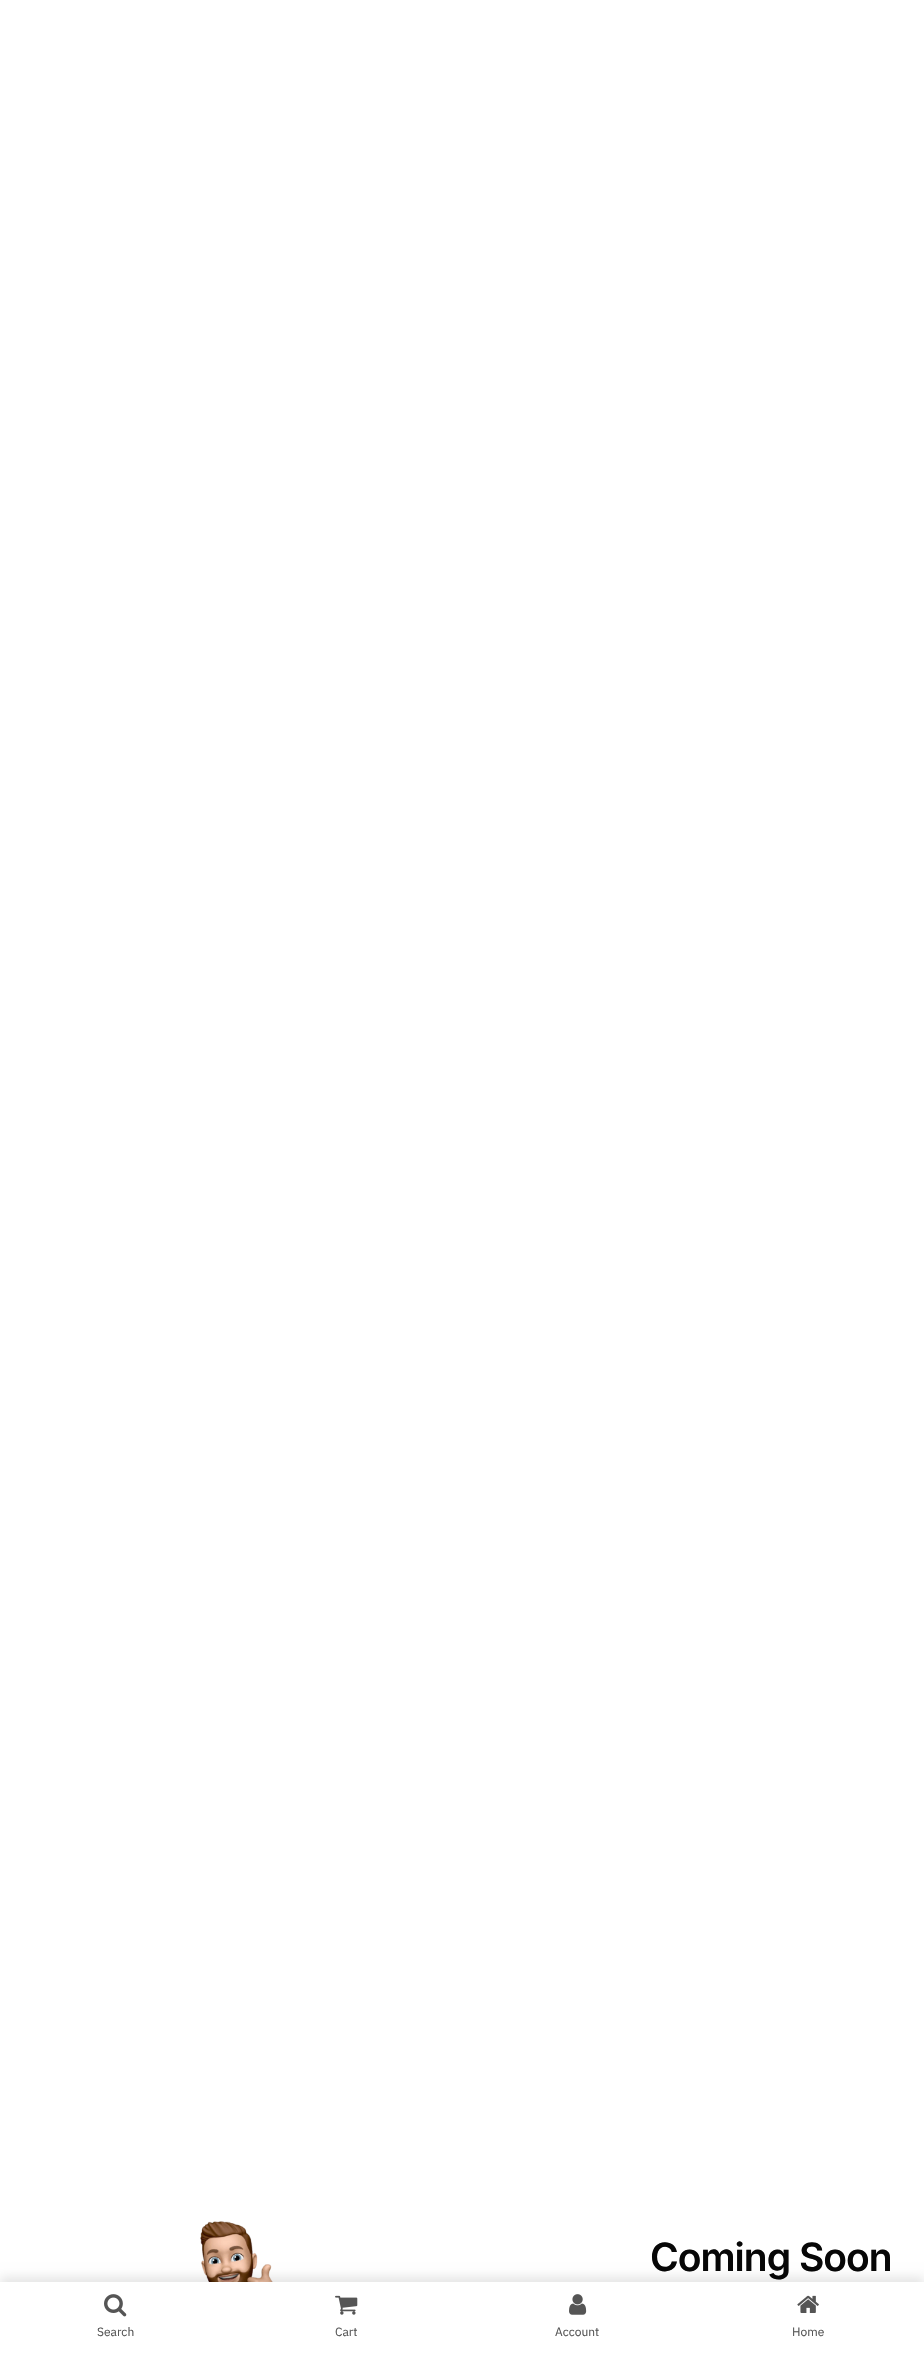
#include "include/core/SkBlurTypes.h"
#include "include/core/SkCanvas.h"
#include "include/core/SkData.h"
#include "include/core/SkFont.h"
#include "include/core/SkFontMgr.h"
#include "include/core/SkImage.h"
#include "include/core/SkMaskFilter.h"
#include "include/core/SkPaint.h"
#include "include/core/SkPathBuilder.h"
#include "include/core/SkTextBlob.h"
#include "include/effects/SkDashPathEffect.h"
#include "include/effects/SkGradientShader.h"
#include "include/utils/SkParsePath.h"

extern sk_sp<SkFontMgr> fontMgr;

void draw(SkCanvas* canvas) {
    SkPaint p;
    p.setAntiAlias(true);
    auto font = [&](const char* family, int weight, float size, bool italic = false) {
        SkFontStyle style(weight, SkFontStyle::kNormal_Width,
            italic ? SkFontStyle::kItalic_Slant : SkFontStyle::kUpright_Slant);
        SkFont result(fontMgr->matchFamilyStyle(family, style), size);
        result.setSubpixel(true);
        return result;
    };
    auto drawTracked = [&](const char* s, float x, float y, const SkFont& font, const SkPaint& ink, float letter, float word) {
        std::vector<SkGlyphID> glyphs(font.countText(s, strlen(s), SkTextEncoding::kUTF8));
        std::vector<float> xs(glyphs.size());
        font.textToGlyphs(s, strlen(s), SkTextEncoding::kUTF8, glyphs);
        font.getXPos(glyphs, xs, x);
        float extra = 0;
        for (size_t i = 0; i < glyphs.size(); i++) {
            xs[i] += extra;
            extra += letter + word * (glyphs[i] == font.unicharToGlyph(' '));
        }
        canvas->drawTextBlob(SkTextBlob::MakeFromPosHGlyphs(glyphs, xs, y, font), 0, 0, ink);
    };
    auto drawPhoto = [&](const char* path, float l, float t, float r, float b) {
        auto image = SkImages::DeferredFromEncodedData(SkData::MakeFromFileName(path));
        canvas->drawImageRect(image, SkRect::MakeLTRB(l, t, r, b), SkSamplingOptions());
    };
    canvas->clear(0xFFFFFFFF);
    drawPhoto("media/1.png", 200, 2221, 273, 2282);
    auto font1 = font("Inter", 600, 39);
    p.setColor(0xFF070707);
    drawTracked("Coming Soon", 650, 2271, font1, p, -1, 0);
    p.setColor(0x1A000000);
    p.setMaskFilter(SkMaskFilter::MakeBlur(kNormal_SkBlurStyle, 5));
    canvas->drawRect(SkRect::MakeLTRB(0, 2277, 924, 2348), p);
    p.setMaskFilter(nullptr);
    p.setColor(0xFFFFFFFF);
    canvas->drawRect(SkRect::MakeLTRB(0, 2282, 924, 2353), p);
    drawPhoto("media/2.png", 104, 2294, 127, 2317);
    auto font2 = font("IBM Plex Sans Arabic", 400, 12);
    p.setColor(0xFF555555);
    canvas->drawString("Search", 97, 2336, font2, p);
    drawPhoto("media/3.png", 335, 2295, 358, 2315);
    canvas->drawString("Cart", 335, 2336, font2, p);
    drawPhoto("media/4.png", 569, 2294, 587, 2315);
    canvas->drawString("Account", 555, 2336, font2, p);
    drawPhoto("media/5.png", 797, 2295, 819, 2313);
    canvas->drawString("Home", 792, 2336, font2, p);
}
